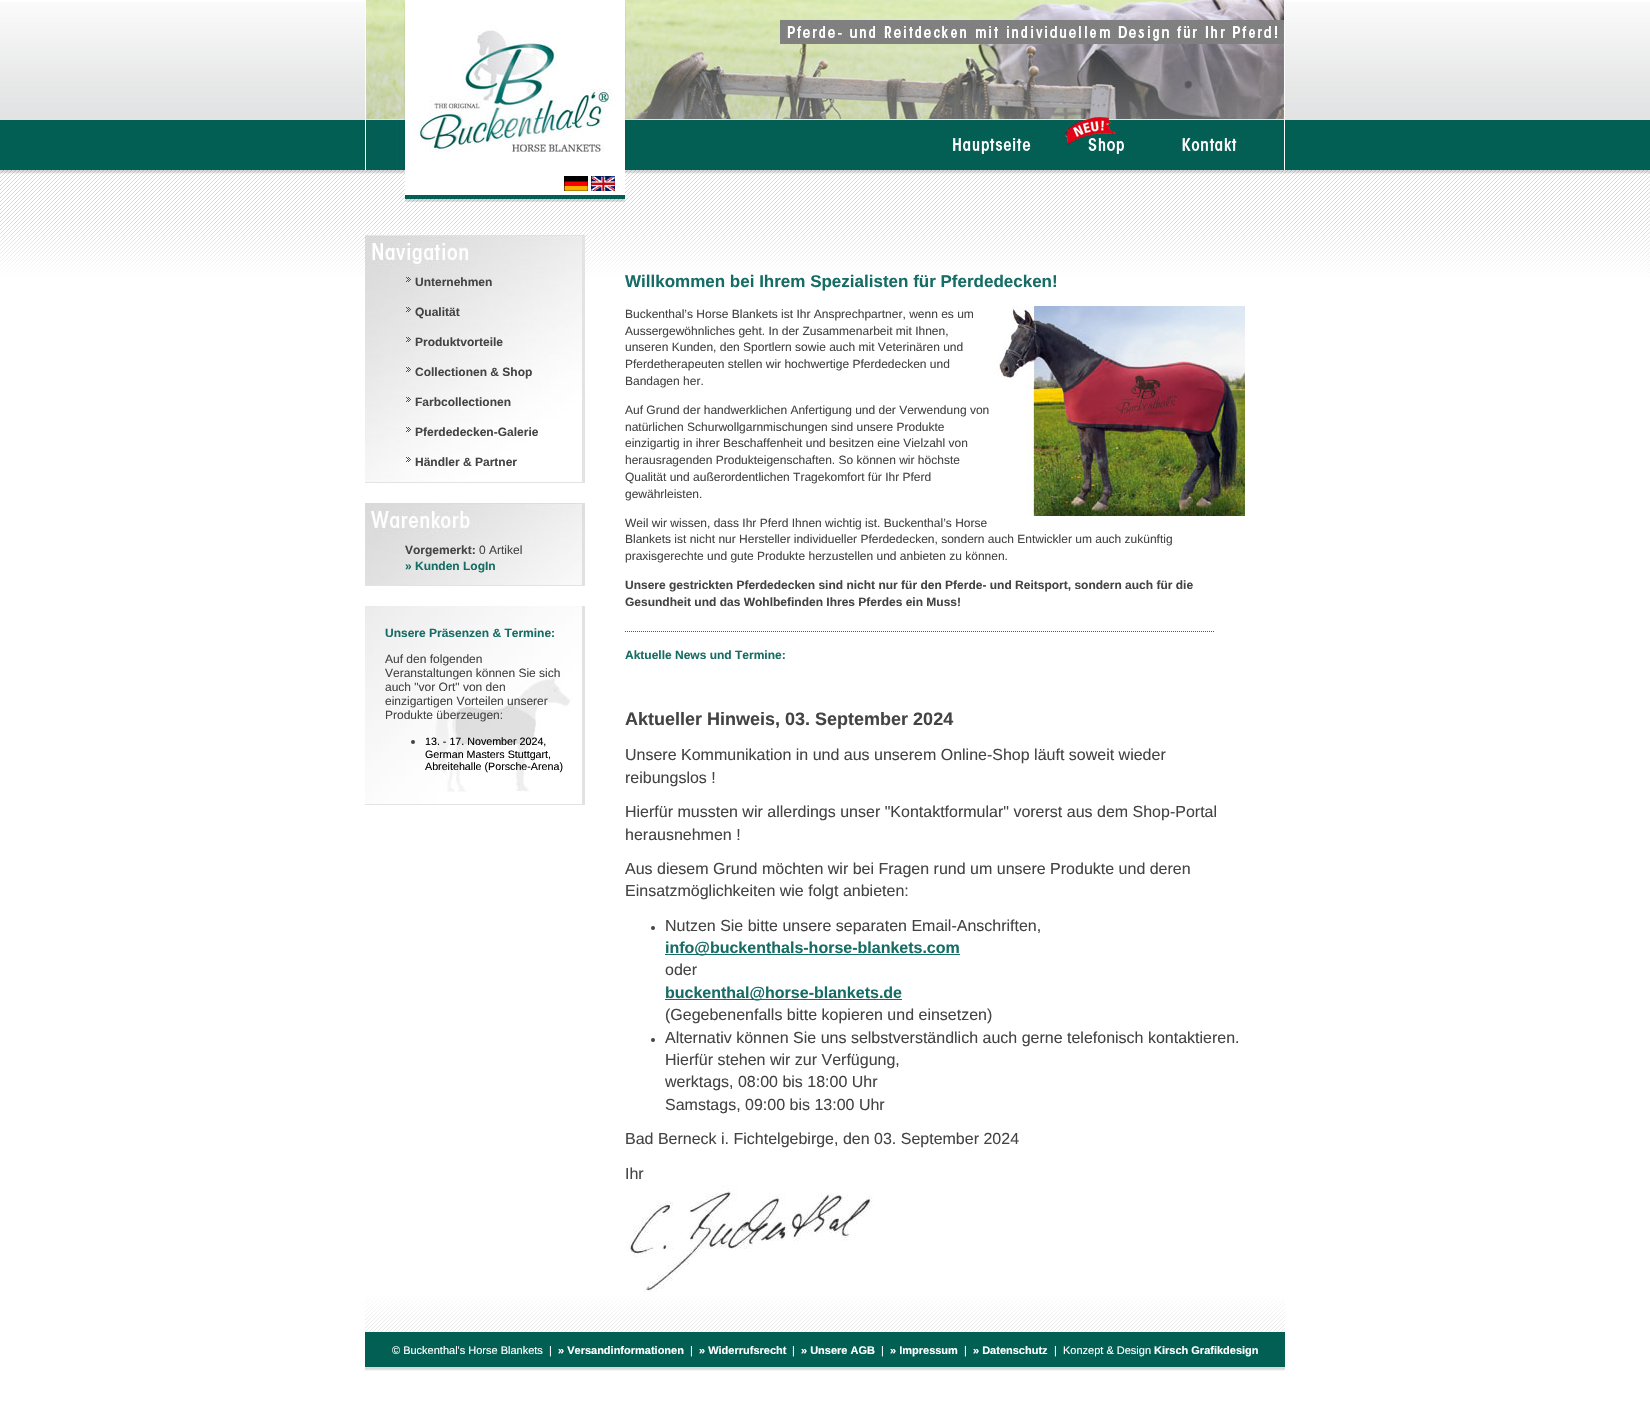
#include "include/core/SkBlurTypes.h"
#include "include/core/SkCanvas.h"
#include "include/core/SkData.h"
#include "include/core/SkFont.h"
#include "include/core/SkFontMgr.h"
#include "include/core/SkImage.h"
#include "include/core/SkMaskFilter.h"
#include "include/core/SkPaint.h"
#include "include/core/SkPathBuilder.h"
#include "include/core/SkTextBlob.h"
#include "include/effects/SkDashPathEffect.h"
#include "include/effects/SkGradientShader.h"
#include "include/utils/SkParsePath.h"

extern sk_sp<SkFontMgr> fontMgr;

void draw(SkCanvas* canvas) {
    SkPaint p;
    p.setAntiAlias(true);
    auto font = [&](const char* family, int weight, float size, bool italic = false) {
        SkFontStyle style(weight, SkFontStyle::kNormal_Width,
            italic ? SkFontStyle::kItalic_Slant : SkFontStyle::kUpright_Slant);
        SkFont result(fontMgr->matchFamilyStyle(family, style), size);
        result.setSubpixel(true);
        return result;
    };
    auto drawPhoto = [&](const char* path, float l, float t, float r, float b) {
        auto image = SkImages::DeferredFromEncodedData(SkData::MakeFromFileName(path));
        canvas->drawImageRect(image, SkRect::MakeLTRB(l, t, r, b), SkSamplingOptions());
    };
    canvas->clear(0xFFFFFFFF);
    drawPhoto("media/1.png", 0, 2, 1650, 277);
    drawPhoto("media/2.png", 365, 0, 625, 170);
    drawPhoto("media/3.png", 625, 0, 1285, 170);
    drawPhoto("media/4.png", 405, 170, 625, 202);
    drawPhoto("media/5.png", 564, 176, 588, 191);
    drawPhoto("media/6.png", 591, 176, 615, 191);
    drawPhoto("media/7.png", 365, 235, 585, 482);
    p.setColor(0xFFE3E3E4);
    canvas->drawRect(SkRect::MakeLTRB(365, 482, 585, 483), p);
    drawPhoto("media/8.png", 406, 277, 411, 282);
    auto font1 = font("Liberation Sans", 700, 12);
    p.setColor(0xFF444444);
    canvas->drawString("Unternehmen", 415, 286, font1, p);
    drawPhoto("media/9.png", 406, 307, 411, 312);
    canvas->drawString("Qualität", 415, 316, font1, p);
    drawPhoto("media/10.png", 406, 337, 411, 342);
    canvas->drawString("Produktvorteile", 415, 346, font1, p);
    drawPhoto("media/11.png", 406, 367, 411, 372);
    canvas->drawString("Collectionen & Shop", 415, 376, font1, p);
    drawPhoto("media/12.png", 406, 397, 411, 402);
    canvas->drawString("Farbcollectionen", 415, 406, font1, p);
    drawPhoto("media/13.png", 406, 427, 411, 432);
    canvas->drawString("Pferdedecken-Galerie", 415, 436, font1, p);
    drawPhoto("media/14.png", 406, 457, 411, 462);
    canvas->drawString("Händler & Partner", 415, 466, font1, p);
    drawPhoto("media/15.png", 365, 503, 585, 585);
    p.setColor(0xFFE3E3E4);
    canvas->drawRect(SkRect::MakeLTRB(365, 585, 585, 586), p);
    p.setColor(0xFF444444);
    canvas->drawString("Vorgemerkt:", 405, 554, font1, p);
    auto font2 = font("Liberation Sans", 400, 12);
    canvas->drawString("0 Artikel", 479, 554, font2, p);
    p.setColor(0xFF166D65);
    canvas->drawString("» Kunden LogIn", 405, 570, font1, p);
    p.setColor(0xFFE2E2E2);
    canvas->drawRect(SkRect::MakeLTRB(582, 606, 585, 804), p);
    drawPhoto("media/16.png", 365, 606, 582, 804);
    p.setColor(0xFFE3E3E4);
    canvas->drawRect(SkRect::MakeLTRB(365, 804, 585, 805), p);
    p.setColor(0xFF166D65);
    canvas->drawString("Unsere Präsenzen & Termine:", 385, 637, font1, p);
    p.setColor(0xFF444444);
    {
        const struct { const char* s; float x, y; } items[] = {
            {"Auf den folgenden", 385, 663},
            {"Veranstaltungen können Sie sich", 385, 677},
            {"auch \"vor Ort\" von den", 385, 691},
            {"einzigartigen Vorteilen unserer", 385, 705},
            {"Produkte überzeugen:", 385, 719},
        };
        for (auto [s, x, y] : items) {
            canvas->drawString(s, x, y, font2, p);
        }
    }
    canvas->drawCircle(413, 742, 2, p);
    auto font3 = font("Liberation Sans", 400, 10.7f);
    p.setColor(0xFF000000);
    {
        const struct { const char* s; float x, y; } items[] = {
            {"13. - 17. November 2024,", 425, 745},
            {"German Masters Stuttgart,", 425, 758},
            {"Abreitehalle (Porsche-Arena)", 425, 770},
        };
        for (auto [s, x, y] : items) {
            canvas->drawString(s, x, y, font3, p);
        }
    }
    auto font4 = font("Liberation Sans", 700, 17);
    p.setColor(0xFF166D65);
    canvas->drawString("Willkommen bei Ihrem Spezialisten für Pferdedecken!", 625, 287, font4, p);
    p.setColor(0xFF444444);
    canvas->drawString("Buckenthal’s Horse Blankets ist Ihr Ansprechpartner, wenn es um", 625, 318, font2, p);
    drawPhoto("media/17.png", 995, 306, 1245, 516);
    {
        const struct { const char* s; float x, y; } items[] = {
            {"Aussergewöhnliches geht. In der Zusammenarbeit mit Ihnen,", 625, 335},
            {"unseren Kunden, den Sportlern sowie auch mit Veterinären und", 625, 351},
            {"Pferdetherapeuten stellen wir hochwertige Pferdedecken und", 625, 368},
            {"Bandagen her.", 625, 385},
            {"Auf Grund der handwerklichen Anfertigung und der Verwendung von", 625, 414},
            {"natürlichen Schurwollgarnmischungen sind unsere Produkte", 625, 431},
            {"einzigartig in ihrer Beschaffenheit und besitzen eine Vielzahl von", 625, 447},
            {"herausragenden Produkteigenschaften. So können wir höchste", 625, 464},
            {"Qualität und außerordentlichen Tragekomfort für Ihr Pferd", 625, 481},
            {"gewährleisten.", 625, 498},
            {"Weil wir wissen, dass Ihr Pferd Ihnen wichtig ist. Buckenthal’s Horse", 625, 527},
            {"Blankets ist nicht nur Hersteller individueller Pferdedecken, sondern auch Entwickler um auch zukünftig", 625, 543},
            {"praxisgerechte und gute Produkte herzustellen und anbieten zu können.", 625, 560},
        };
        for (auto [s, x, y] : items) {
            canvas->drawString(s, x, y, font2, p);
        }
    }
    canvas->drawString("Unsere gestrickten Pferdedecken sind nicht nur für den Pferde- und Reitsport, sondern auch für die", 625, 589, font1, p);
    canvas->drawString("Gesundheit und das Wohlbefinden Ihres Pferdes ein Muss!", 625, 606, font1, p);
    drawPhoto("media/18.png", 625, 631, 1214, 632);
    p.setColor(0xFF166D65);
    canvas->drawString("Aktuelle News und Termine:", 625, 659, font1, p);
    auto font5 = font("Liberation Sans", 700, 18);
    p.setColor(0xFF444444);
    canvas->drawString("Aktueller Hinweis, 03. September 2024", 625, 725, font5, p);
    auto font6 = font("Liberation Sans", 400, 16);
    {
        const struct { const char* s; float x, y; } items[] = {
            {"Unsere Kommunikation in und aus unserem Online-Shop läuft soweit wieder", 625, 760},
            {"reibungslos !", 625, 783},
            {"Hierfür mussten wir allerdings unser \"Kontaktformular\" vorerst aus dem Shop-Portal", 625, 817},
            {"herausnehmen !", 625, 840},
            {"Aus diesem Grund möchten wir bei Fragen rund um unsere Produkte und deren", 625, 874},
            {"Einsatzmöglichkeiten wie folgt anbieten:", 625, 896},
        };
        for (auto [s, x, y] : items) {
            canvas->drawString(s, x, y, font6, p);
        }
    }
    canvas->drawCircle(653, 928, 2, p);
    canvas->drawString("Nutzen Sie bitte unsere separaten Email-Anschriften,", 665, 931, font6, p);
    p.setColor(0xFF166D65);
    canvas->drawRect(SkRect::MakeLTRB(665, 954, 960, 955), p);
    auto font7 = font("Liberation Sans", 700, 16);
    canvas->drawString("info@buckenthals-horse-blankets.com", 665, 953, font7, p);
    p.setColor(0xFF444444);
    canvas->drawString("oder", 665, 975, font6, p);
    p.setColor(0xFF166D65);
    canvas->drawRect(SkRect::MakeLTRB(665, 999, 902, 1000), p);
    canvas->drawString("buckenthal@horse-blankets.de", 665, 998, font7, p);
    p.setColor(0xFF444444);
    canvas->drawString("(Gegebenenfalls bitte kopieren und einsetzen)", 665, 1020, font6, p);
    canvas->drawCircle(653, 1040, 2, p);
    {
        const struct { const char* s; float x, y; } items[] = {
            {"Alternativ können Sie uns selbstverständlich auch gerne telefonisch kontaktieren.", 665, 1043},
            {"Hierfür stehen wir zur Verfügung,", 665, 1065},
            {"werktags, 08:00 bis 18:00 Uhr", 665, 1087},
            {"Samstags, 09:00 bis 13:00 Uhr", 665, 1110},
            {"Bad Berneck i. Fichtelgebirge, den 03. September 2024", 625, 1144},
            {"Ihr", 625, 1179},
        };
        for (auto [s, x, y] : items) {
            canvas->drawString(s, x, y, font6, p);
        }
    }
    drawPhoto("media/19.png", 625, 1185, 873, 1292);
    drawPhoto("media/20.png", 365, 1297, 1285, 1371);
    auto font8 = font("Liberation Sans", 400, 11);
    p.setColor(0xFFFFFFFF);
    canvas->drawString("© Buckenthal's Horse Blankets  |", 392, 1354, font8, p);
    auto font9 = font("Liberation Sans", 700, 11);
    canvas->drawString("» Versandinformationen", 558, 1354, font9, p);
    canvas->drawString("|", 690, 1354, font8, p);
    canvas->drawString("» Widerrufsrecht", 699, 1354, font9, p);
    canvas->drawString("|", 792, 1354, font8, p);
    canvas->drawString("» Unsere AGB", 801, 1354, font9, p);
    canvas->drawString("|", 881, 1354, font8, p);
    canvas->drawString("» Impressum", 890, 1354, font9, p);
    canvas->drawString("|", 964, 1354, font8, p);
    canvas->drawString("» Datenschutz", 973, 1354, font9, p);
    canvas->drawString("|  Konzept & Design", 1054, 1354, font8, p);
    canvas->drawString("Kirsch Grafikdesign", 1154, 1354, font9, p);
}
